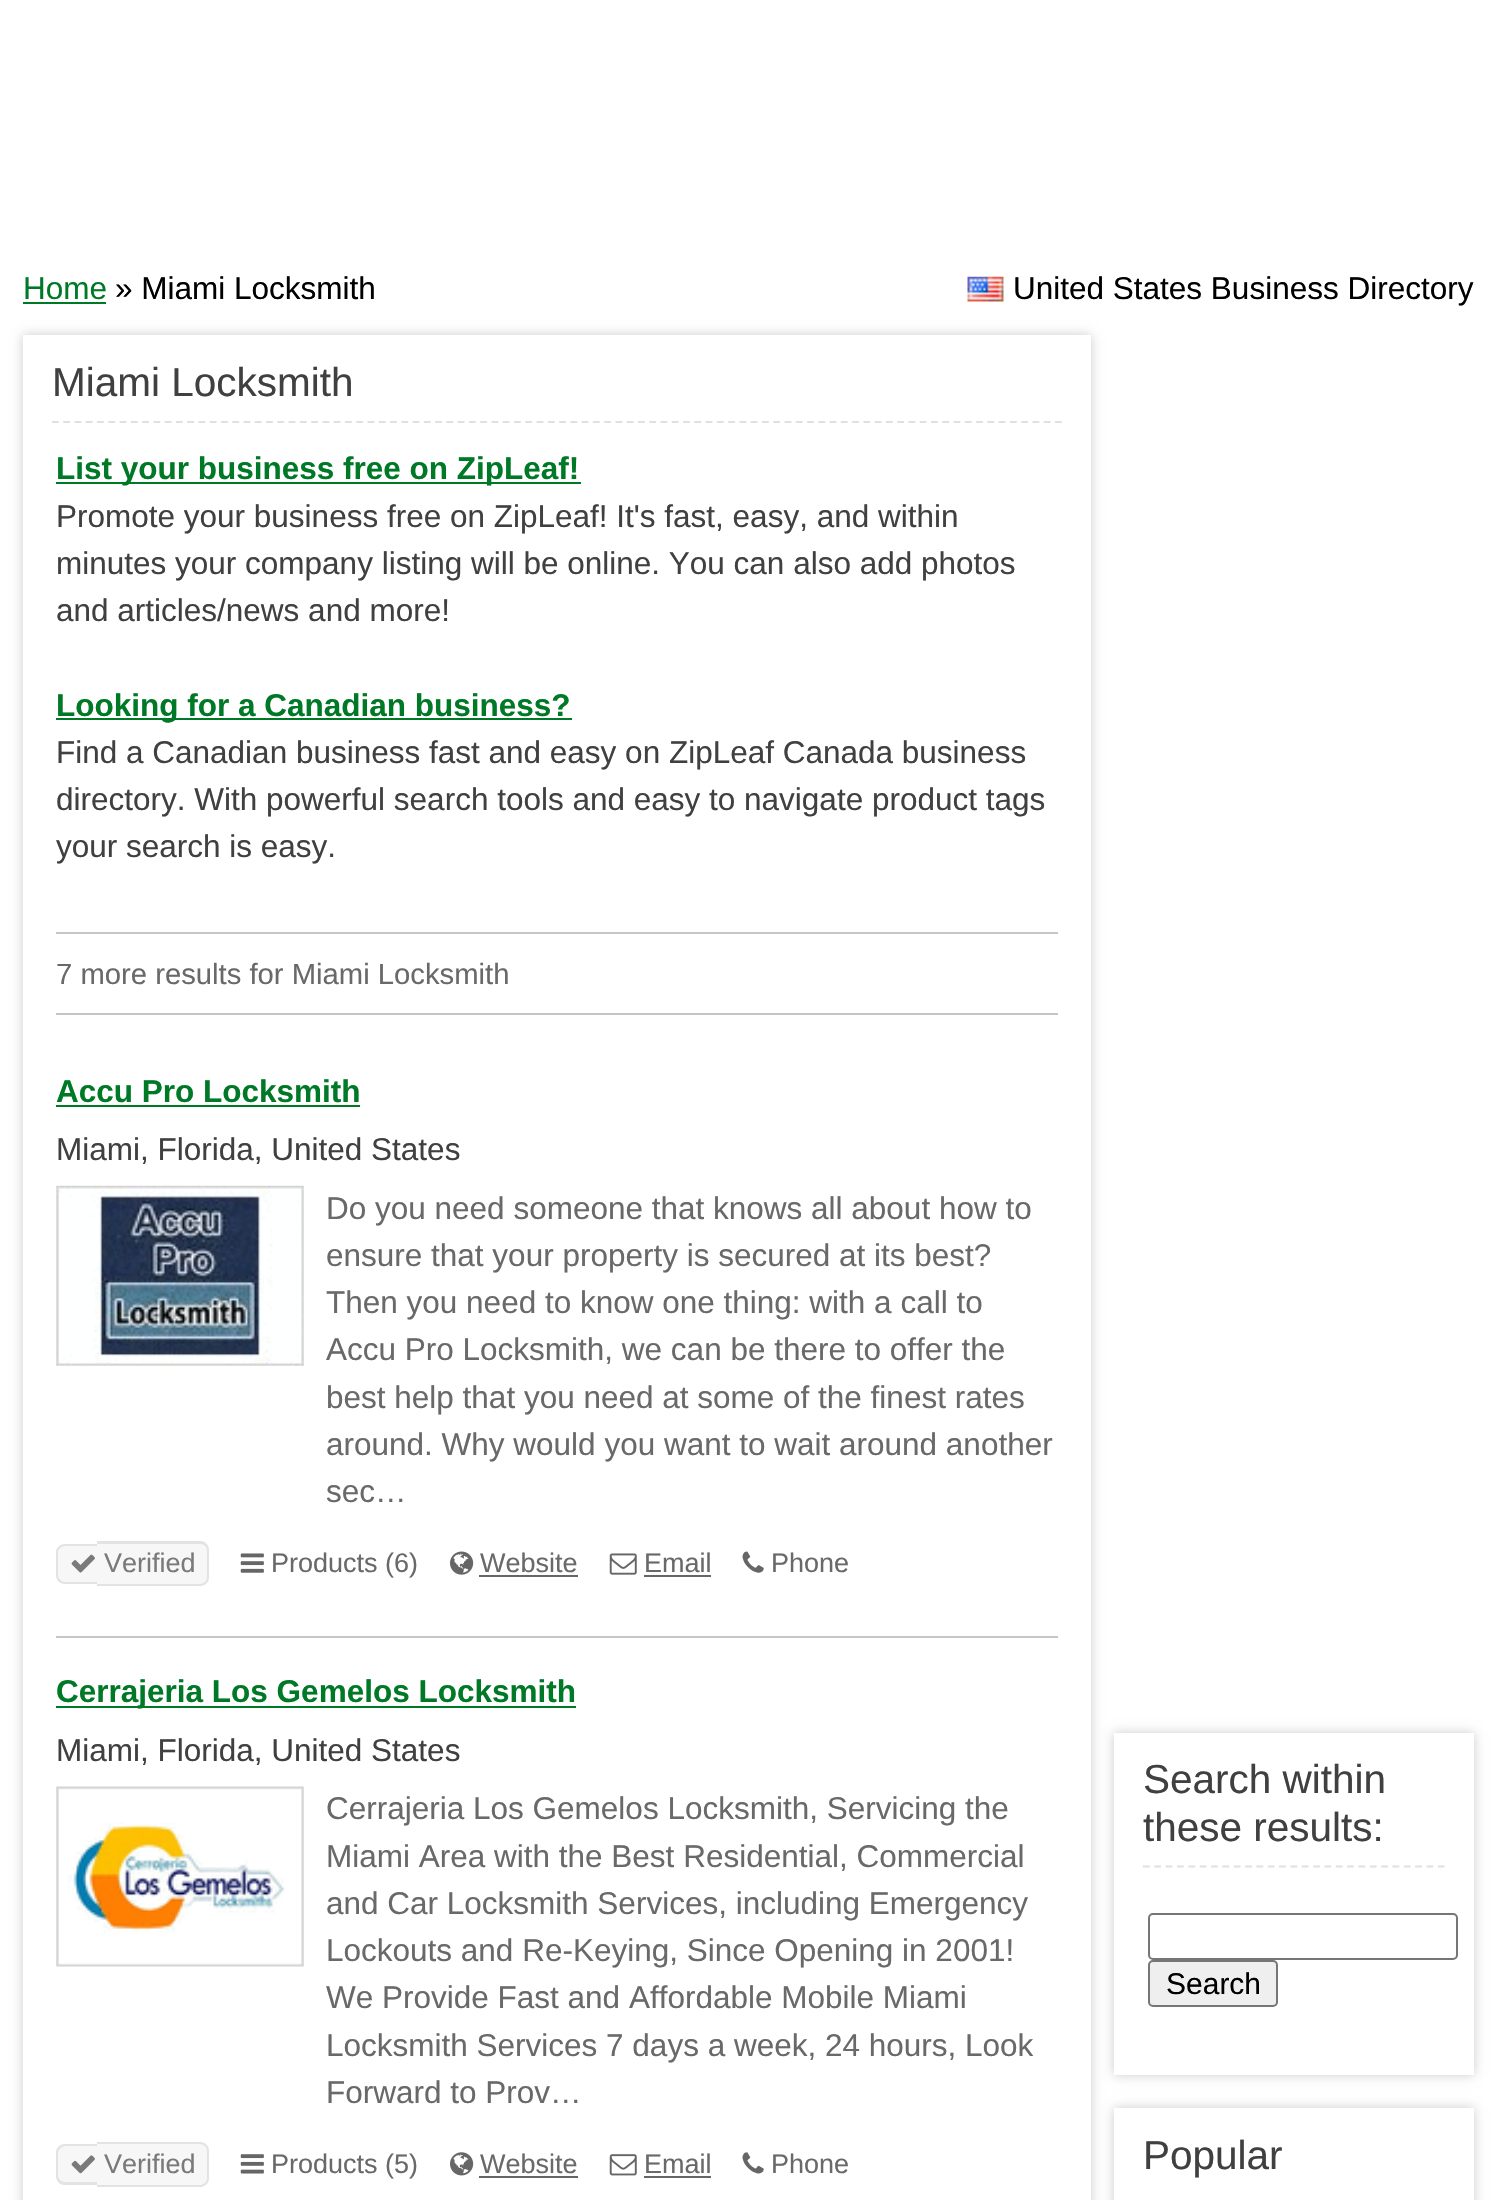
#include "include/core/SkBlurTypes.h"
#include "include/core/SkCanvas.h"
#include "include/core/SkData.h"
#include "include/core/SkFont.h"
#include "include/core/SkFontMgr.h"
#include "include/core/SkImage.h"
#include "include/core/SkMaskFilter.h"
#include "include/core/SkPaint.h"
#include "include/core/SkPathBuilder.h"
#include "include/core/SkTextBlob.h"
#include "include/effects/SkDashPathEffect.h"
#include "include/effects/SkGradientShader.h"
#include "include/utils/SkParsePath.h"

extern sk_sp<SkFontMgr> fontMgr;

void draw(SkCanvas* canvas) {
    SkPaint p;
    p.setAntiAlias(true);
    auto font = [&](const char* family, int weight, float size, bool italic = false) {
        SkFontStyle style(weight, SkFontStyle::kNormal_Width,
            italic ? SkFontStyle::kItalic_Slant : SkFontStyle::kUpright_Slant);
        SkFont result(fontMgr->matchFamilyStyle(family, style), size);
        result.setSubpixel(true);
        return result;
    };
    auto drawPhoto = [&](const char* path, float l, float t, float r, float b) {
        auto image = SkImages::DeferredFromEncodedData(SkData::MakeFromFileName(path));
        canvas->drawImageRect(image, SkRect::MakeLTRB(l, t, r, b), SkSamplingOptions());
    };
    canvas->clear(0xFFFFFFFF);
    auto font1 = font("Liberation Sans", 400, 31.5f);
    p.setColor(0xFF007927);
    canvas->drawString("Home", 23, 299, font1, p);
    canvas->drawRect(SkRect::MakeLTRB(23, 302, 106, 304), p);
    p.setColor(0xFF000000);
    canvas->drawString("» Miami Locksmith", 115, 299, font1, p);
    drawPhoto("media/1.png", 967, 276, 1004, 302);
    canvas->drawString("United States Business Directory", 1013, 299, font1, p);
    p.setColor(0xFFCCCCCC);
    p.setMaskFilter(SkMaskFilter::MakeBlur(kNormal_SkBlurStyle, 5.5f));
    canvas->drawRect(SkRect::MakeLTRB(23, 335, 1091, 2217), p);
    p.setMaskFilter(nullptr);
    p.setColor(0xFFFFFFFF);
    canvas->drawRect(SkRect::MakeLTRB(23, 335, 1091, 2200), p);
    p.setStyle(SkPaint::kStroke_Style);
    p.setStrokeWidth(2.2f);
    p.setColor(0xFFE0E0E0);
    p.setPathEffect(SkDashPathEffect::Make({{6.75f, 4.52f}}, 0));
    canvas->drawPath(SkPathBuilder().moveTo(52, 422).lineTo(1062, 422).detach(), p);
    p.setPathEffect(nullptr);
    auto font2 = font("Liberation Sans", 400, 40.5f);
    p.setStyle(SkPaint::kFill_Style);
    p.setColor(0xFF404040);
    canvas->drawString("Miami Locksmith", 52, 396, font2, p);
    p.setColor(0xFF007927);
    canvas->drawRect(SkRect::MakeLTRB(56, 482, 581, 484), p);
    auto font3 = font("Liberation Sans", 700, 31.5f);
    canvas->drawString("List your business free on ZipLeaf!", 56, 479, font3, p);
    p.setColor(0xFF404040);
    {
        const struct { const char* s; float x, y; } items[] = {
            {"Promote your business free on ZipLeaf! It's fast, easy, and within", 56, 527},
            {"minutes your company listing will be online. You can also add photos", 56, 574},
            {"and articles/news and more!", 56, 621},
        };
        for (auto [s, x, y] : items) {
            canvas->drawString(s, x, y, font1, p);
        }
    }
    p.setColor(0xFF007927);
    canvas->drawRect(SkRect::MakeLTRB(56, 718, 572, 720), p);
    canvas->drawString("Looking for a Canadian business?", 56, 716, font3, p);
    p.setColor(0xFF404040);
    {
        const struct { const char* s; float x, y; } items[] = {
            {"Find a Canadian business fast and easy on ZipLeaf Canada business", 56, 763},
            {"directory. With powerful search tools and easy to navigate product tags", 56, 810},
            {"your search is easy.", 56, 857},
        };
        for (auto [s, x, y] : items) {
            canvas->drawString(s, x, y, font1, p);
        }
    }
    p.setColor(0xFFC5C5C5);
    canvas->drawRect(SkRect::MakeLTRB(56, 932, 1058, 934), p);
    canvas->drawRect(SkRect::MakeLTRB(56, 1013, 1058, 1015), p);
    auto font4 = font("Liberation Sans", 400, 29.25f);
    p.setColor(0xFF696969);
    canvas->drawString("7 more results for Miami Locksmith", 56, 984, font4, p);
    p.setColor(0xFFC5C5C5);
    canvas->drawRect(SkRect::MakeLTRB(56, 1636, 1058, 1638), p);
    p.setColor(0xFF007927);
    canvas->drawString("Accu Pro Locksmith", 56, 1102, font3, p);
    canvas->drawRect(SkRect::MakeLTRB(56, 1105, 360, 1107), p);
    p.setColor(0xFF404040);
    canvas->drawString("Miami, Florida, United States", 56, 1160, font1, p);
    drawPhoto("media/2.png", 56, 1185, 304, 1366);
    p.setColor(0xFF696969);
    {
        const struct { const char* s; float x, y; } items[] = {
            {"Do you need someone that knows all about how to", 326, 1219},
            {"ensure that your property is secured at its best?", 326, 1266},
            {"Then you need to know one thing: with a call to", 326, 1313},
            {"Accu Pro Locksmith, we can be there to offer the", 326, 1360},
            {"best help that you need at some of the finest rates", 326, 1408},
            {"around. Why would you want to wait around another", 326, 1455},
            {"sec…", 326, 1502},
        };
        for (auto [s, x, y] : items) {
            canvas->drawString(s, x, y, font1, p);
        }
    }
    p.setColor(0xFFF7F7F7);
    canvas->drawPath(SkPathBuilder().moveTo(65, 1544).lineTo(97, 1544).lineTo(97, 1584).lineTo(65, 1584).cubicTo(60, 1584, 56, 1580, 56, 1575).lineTo(56, 1553).cubicTo(56, 1548, 60, 1544, 65, 1544).close().detach(), p);
    p.setColor(0xFFE3E3E3);
    canvas->drawPath(SkPathBuilder(SkPathFillType::kEvenOdd).moveTo(65, 1544).lineTo(97, 1544).lineTo(97, 1584).lineTo(65, 1584).cubicTo(60, 1584, 56, 1580, 56, 1575).lineTo(56, 1552).cubicTo(56, 1548, 60, 1544, 65, 1544).close().moveTo(65, 1546).lineTo(97, 1546).lineTo(97, 1582).lineTo(65, 1582).cubicTo(62, 1582, 58, 1579, 58, 1575).lineTo(58, 1552).cubicTo(58, 1549, 62, 1546, 65, 1546).close().detach(), p);
    p.setColor(0xFFF7F7F7);
    canvas->drawPath(SkPathBuilder().moveTo(97, 1541).lineTo(200, 1541).cubicTo(205, 1541, 209, 1545, 209, 1550).lineTo(209, 1577).cubicTo(209, 1582, 205, 1586, 200, 1586).lineTo(97, 1586).close().detach(), p);
    p.setColor(0xFFE3E3E3);
    canvas->drawPath(SkPathBuilder(SkPathFillType::kEvenOdd).moveTo(97, 1541).lineTo(200, 1541).cubicTo(205, 1541, 209, 1545, 209, 1550).lineTo(209, 1577).cubicTo(209, 1582, 205, 1586, 200, 1586).lineTo(97, 1586).close().moveTo(97, 1544).lineTo(200, 1544).cubicTo(204, 1544, 207, 1547, 207, 1550).lineTo(207, 1577).cubicTo(207, 1581, 204, 1584, 200, 1584).lineTo(97, 1584).close().detach(), p);
    drawPhoto("media/3.png", 71, 1554, 95, 1573);
    auto font5 = font("Liberation Sans", 400, 27);
    p.setColor(0xFF7A7A7A);
    canvas->drawString("Verified", 104, 1572, font5, p);
    drawPhoto("media/4.png", 240, 1553, 264, 1573);
    p.setColor(0xFF696969);
    canvas->drawString("Products (6)", 271, 1572, font5, p);
    drawPhoto("media/5.png", 450, 1551, 474, 1575);
    canvas->drawString("Website", 480, 1572, font5, p);
    p.setColor(0xFF666666);
    canvas->drawRect(SkRect::MakeLTRB(479, 1575, 578, 1577), p);
    drawPhoto("media/6.png", 609, 1553, 637, 1575);
    p.setColor(0xFF696969);
    canvas->drawString("Email", 644, 1572, font5, p);
    p.setColor(0xFF666666);
    canvas->drawRect(SkRect::MakeLTRB(644, 1575, 711, 1577), p);
    drawPhoto("media/7.png", 742, 1551, 764, 1573);
    p.setColor(0xFF696969);
    canvas->drawString("Phone", 771, 1572, font5, p);
    p.setColor(0xFF007927);
    canvas->drawRect(SkRect::MakeLTRB(56, 1706, 576, 1708), p);
    canvas->drawString("Cerrajeria Los Gemelos Locksmith", 56, 1702, font3, p);
    p.setColor(0xFF404040);
    canvas->drawString("Miami, Florida, United States", 56, 1761, font1, p);
    drawPhoto("media/8.png", 56, 1786, 304, 1967);
    p.setColor(0xFF696969);
    {
        const struct { const char* s; float x, y; } items[] = {
            {"Cerrajeria Los Gemelos Locksmith, Servicing the", 326, 1819},
            {"Miami Area with the Best Residential, Commercial", 326, 1867},
            {"and Car Locksmith Services, including Emergency", 326, 1914},
            {"Lockouts and Re-Keying, Since Opening in 2001!", 326, 1961},
            {"We Provide Fast and Affordable Mobile Miami", 326, 2008},
            {"Locksmith Services 7 days a week, 24 hours, Look", 326, 2056},
            {"Forward to Prov…", 326, 2103},
        };
        for (auto [s, x, y] : items) {
            canvas->drawString(s, x, y, font1, p);
        }
    }
    p.setColor(0xFFF7F7F7);
    canvas->drawPath(SkPathBuilder().moveTo(65, 2144).lineTo(97, 2144).lineTo(97, 2185).lineTo(65, 2185).cubicTo(60, 2185, 56, 2181, 56, 2176).lineTo(56, 2153).cubicTo(56, 2148, 60, 2144, 65, 2144).close().detach(), p);
    p.setColor(0xFFE3E3E3);
    canvas->drawPath(SkPathBuilder(SkPathFillType::kEvenOdd).moveTo(65, 2144).lineTo(97, 2144).lineTo(97, 2185).lineTo(65, 2185).cubicTo(60, 2185, 56, 2181, 56, 2176).lineTo(56, 2153).cubicTo(56, 2148, 60, 2144, 65, 2144).close().moveTo(65, 2146).lineTo(97, 2146).lineTo(97, 2182).lineTo(65, 2182).cubicTo(62, 2182, 58, 2179, 58, 2176).lineTo(58, 2153).cubicTo(58, 2150, 62, 2146, 65, 2146).close().detach(), p);
    p.setColor(0xFFF7F7F7);
    canvas->drawPath(SkPathBuilder().moveTo(97, 2142).lineTo(200, 2142).cubicTo(205, 2142, 209, 2146, 209, 2151).lineTo(209, 2178).cubicTo(209, 2183, 205, 2187, 200, 2187).lineTo(97, 2187).close().detach(), p);
    p.setColor(0xFFE3E3E3);
    canvas->drawPath(SkPathBuilder(SkPathFillType::kEvenOdd).moveTo(97, 2142).lineTo(200, 2142).cubicTo(205, 2142, 209, 2146, 209, 2151).lineTo(209, 2178).cubicTo(209, 2183, 205, 2187, 200, 2187).lineTo(97, 2187).close().moveTo(97, 2144).lineTo(200, 2144).cubicTo(204, 2144, 207, 2147, 207, 2151).lineTo(207, 2178).cubicTo(207, 2182, 204, 2185, 200, 2185).lineTo(97, 2185).close().detach(), p);
    drawPhoto("media/9.png", 71, 2155, 95, 2174);
    p.setColor(0xFF7A7A7A);
    canvas->drawString("Verified", 104, 2173, font5, p);
    drawPhoto("media/10.png", 240, 2154, 264, 2174);
    p.setColor(0xFF696969);
    canvas->drawString("Products (5)", 271, 2173, font5, p);
    drawPhoto("media/11.png", 450, 2152, 474, 2176);
    canvas->drawString("Website", 480, 2173, font5, p);
    p.setColor(0xFF666666);
    canvas->drawRect(SkRect::MakeLTRB(479, 2176, 578, 2178), p);
    drawPhoto("media/12.png", 609, 2154, 637, 2176);
    p.setColor(0xFF696969);
    canvas->drawString("Email", 644, 2173, font5, p);
    p.setColor(0xFF666666);
    canvas->drawRect(SkRect::MakeLTRB(644, 2176, 711, 2178), p);
    drawPhoto("media/13.png", 742, 2152, 764, 2174);
    p.setColor(0xFF696969);
    canvas->drawString("Phone", 771, 2173, font5, p);
    p.setColor(0xFFCCCCCC);
    p.setMaskFilter(SkMaskFilter::MakeBlur(kNormal_SkBlurStyle, 5.5f));
    canvas->drawRect(SkRect::MakeLTRB(1114, 1733, 1474, 2075), p);
    p.setMaskFilter(nullptr);
    p.setColor(0xFFFFFFFF);
    canvas->drawRect(SkRect::MakeLTRB(1114, 1733, 1474, 2075), p);
    p.setStyle(SkPaint::kStroke_Style);
    p.setColor(0xFFE0E0E0);
    p.setPathEffect(SkDashPathEffect::Make({{6.75f, 4.59f}}, 0));
    canvas->drawPath(SkPathBuilder().moveTo(1143, 1866.5f).lineTo(1444.5f, 1866.5f).detach(), p);
    p.setPathEffect(nullptr);
    p.setStyle(SkPaint::kFill_Style);
    p.setColor(0xFF404040);
    canvas->drawString("Search within", 1143, 1793, font2, p);
    canvas->drawString("these results:", 1143, 1841, font2, p);
    p.setStyle(SkPaint::kStroke_Style);
    p.setStrokeWidth(2);
    p.setColor(0xFF767676);
    canvas->drawRoundRect(SkRect::MakeLTRB(1149, 1914, 1457, 1959), 4, 4, p);
    p.setStyle(SkPaint::kFill_Style);
    p.setColor(0xFFEFEFEF);
    canvas->drawRoundRect(SkRect::MakeLTRB(1149, 1961, 1277, 2006), 4, 4, p);
    p.setStyle(SkPaint::kStroke_Style);
    p.setColor(0xFF767676);
    canvas->drawRoundRect(SkRect::MakeLTRB(1149, 1961, 1277, 2006), 4, 4, p);
    auto font6 = font("Liberation Sans", 400, 30);
    p.setStyle(SkPaint::kFill_Style);
    p.setColor(0xFF000000);
    canvas->drawString("Search", 1166, 1994, font6, p);
    p.setColor(0xFFCCCCCC);
    p.setMaskFilter(SkMaskFilter::MakeBlur(kNormal_SkBlurStyle, 5.5f));
    canvas->drawRect(SkRect::MakeLTRB(1114, 2108, 1474, 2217), p);
    p.setMaskFilter(nullptr);
    p.setColor(0xFFFFFFFF);
    canvas->drawRect(SkRect::MakeLTRB(1114, 2108, 1474, 2200), p);
    p.setColor(0xFF404040);
    canvas->drawString("Popular", 1143, 2169, font2, p);
}
